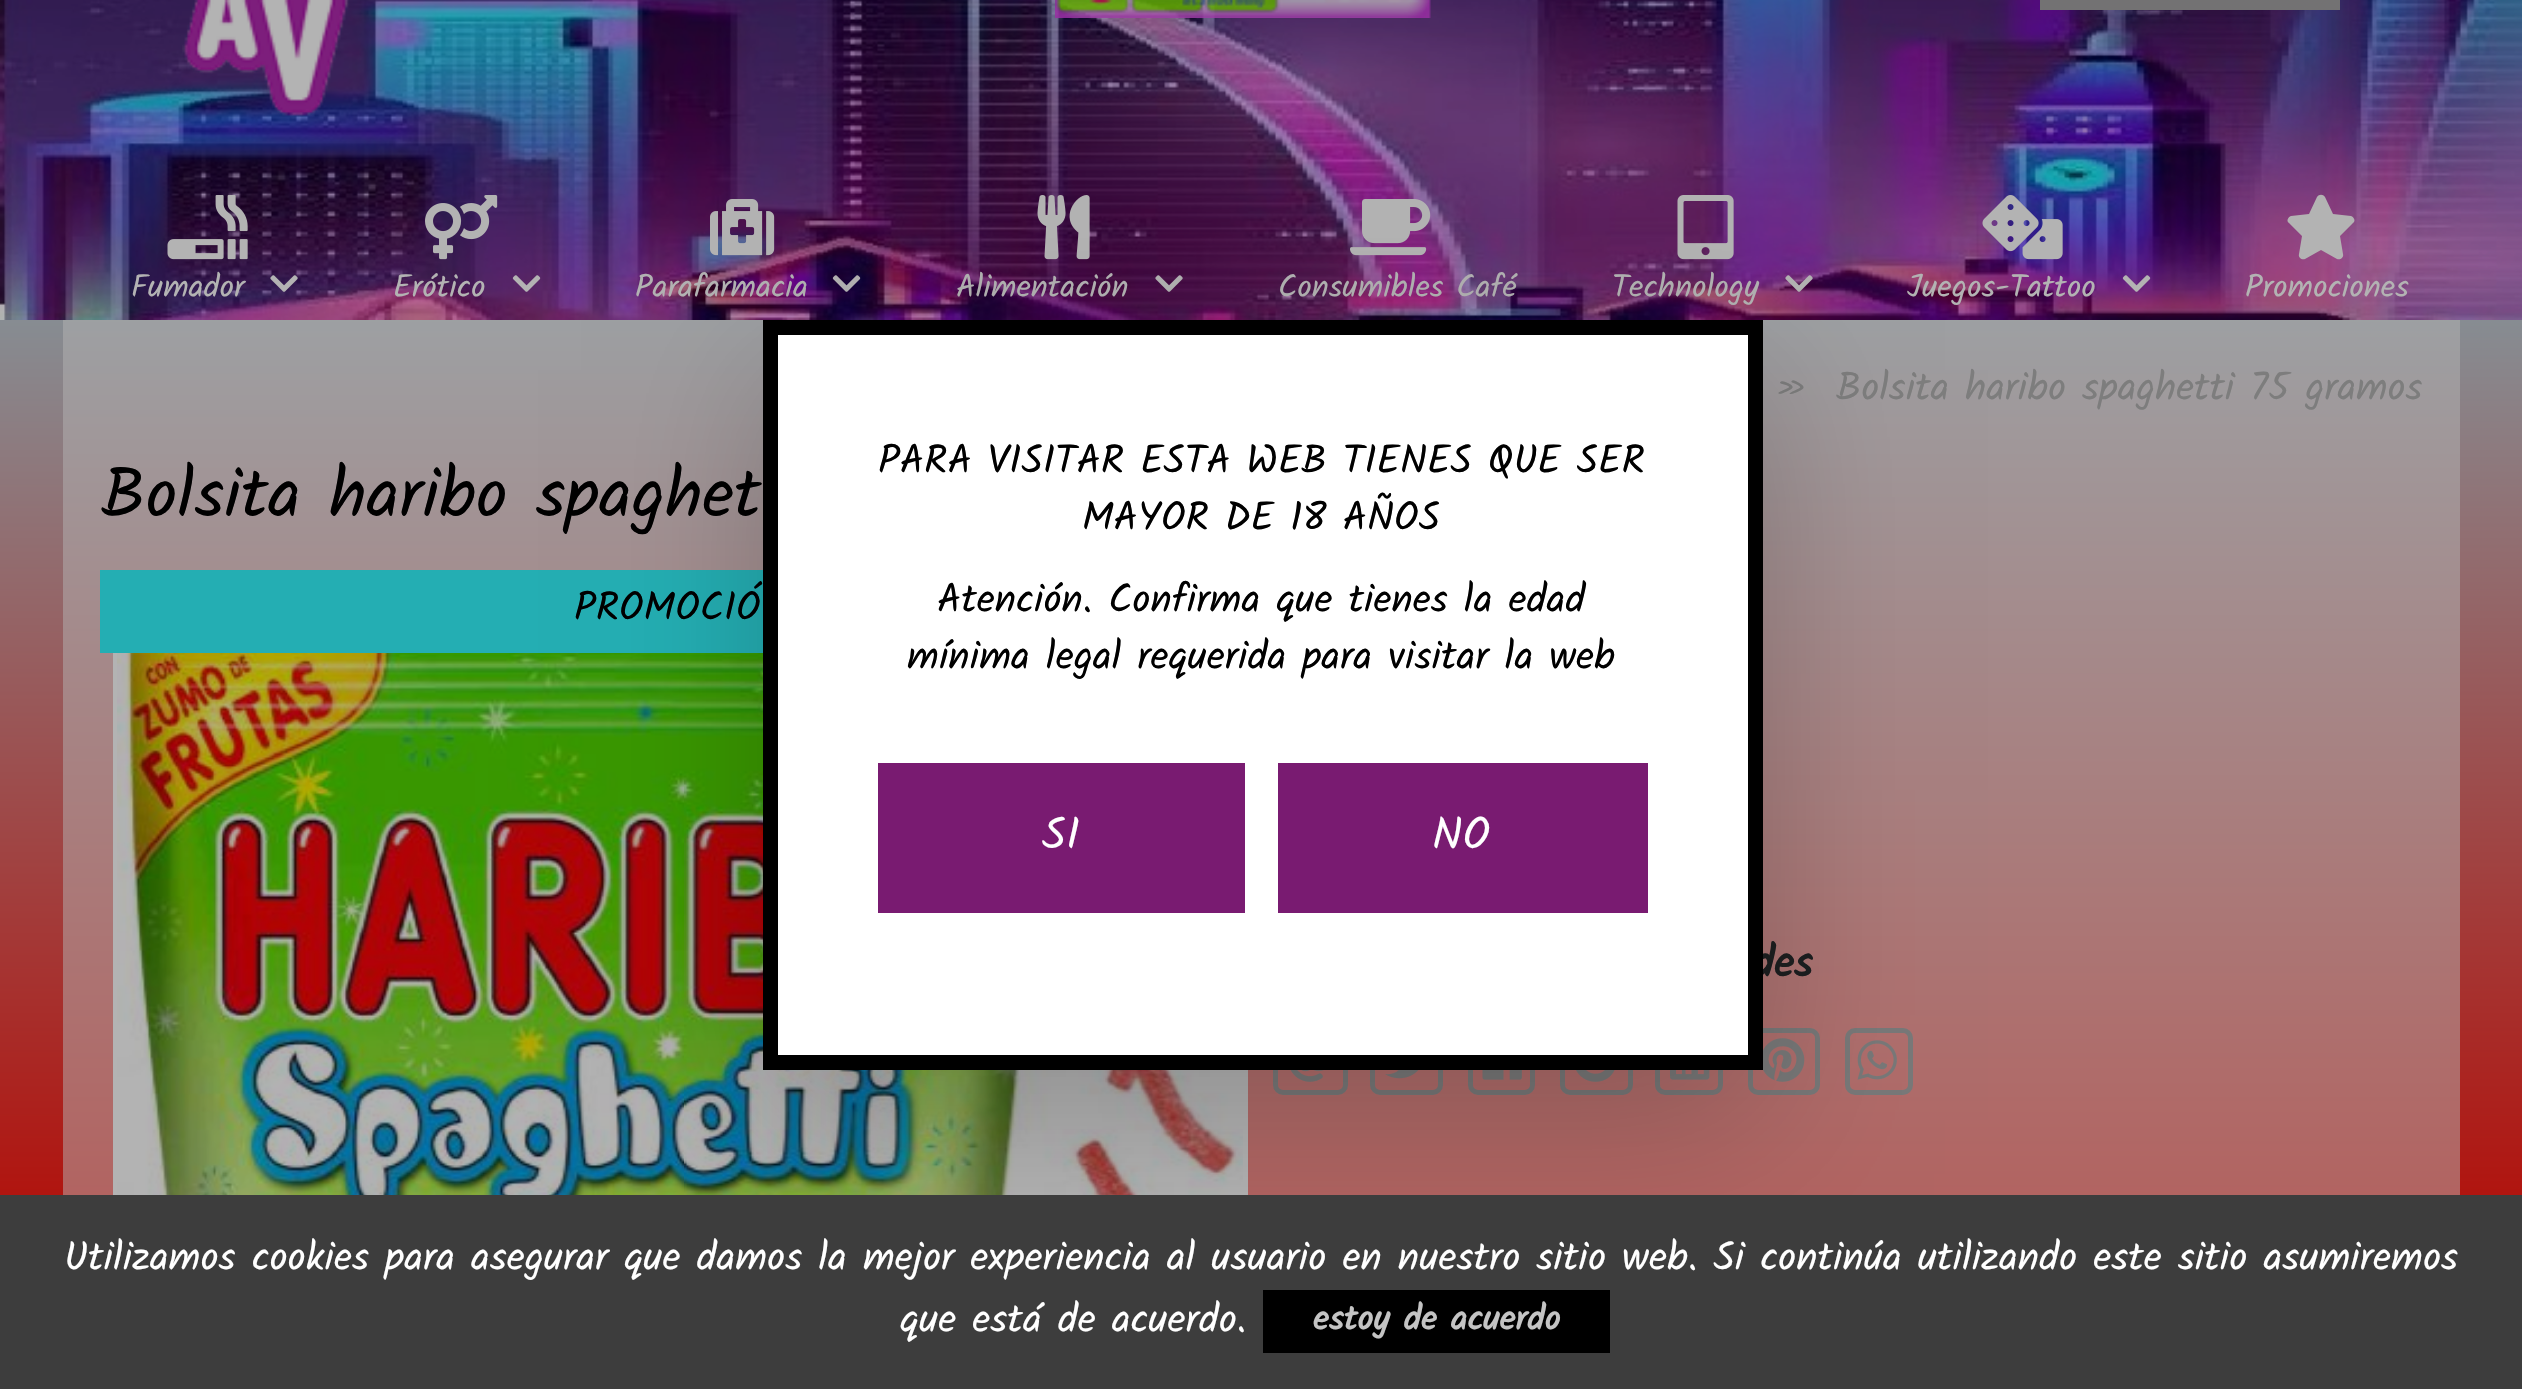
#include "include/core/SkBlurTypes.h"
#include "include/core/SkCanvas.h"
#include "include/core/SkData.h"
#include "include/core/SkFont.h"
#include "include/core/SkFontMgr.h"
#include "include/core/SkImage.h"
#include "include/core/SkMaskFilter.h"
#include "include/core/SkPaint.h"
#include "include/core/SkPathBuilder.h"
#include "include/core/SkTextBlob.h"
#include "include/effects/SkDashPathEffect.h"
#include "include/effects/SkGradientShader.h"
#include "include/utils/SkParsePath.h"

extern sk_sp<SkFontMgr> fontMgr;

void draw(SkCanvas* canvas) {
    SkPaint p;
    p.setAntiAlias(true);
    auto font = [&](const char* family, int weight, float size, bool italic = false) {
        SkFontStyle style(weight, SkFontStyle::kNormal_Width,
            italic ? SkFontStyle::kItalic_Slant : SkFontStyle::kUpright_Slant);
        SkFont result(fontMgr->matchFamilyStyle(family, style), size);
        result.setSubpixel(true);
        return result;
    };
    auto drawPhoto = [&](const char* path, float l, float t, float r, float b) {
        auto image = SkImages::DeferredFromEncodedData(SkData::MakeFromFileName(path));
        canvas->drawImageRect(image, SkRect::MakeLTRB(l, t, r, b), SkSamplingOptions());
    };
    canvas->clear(0xFFFFFFFF);
    {
        const SkColor colors[] = {0xFF7EA5AD, 0xFFB30D07};
        const float stops[] = {0.1f, 0.9f};
        const SkPoint ends[] = {{1261, 0}, {1261, 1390}};
        p.setShader(SkGradientShader::MakeLinear(ends, colors, stops, 2, SkTileMode::kClamp));
        p.setAlpha(255);
    }
    canvas->drawRect(SkRect::MakeLTRB(0, 320, 2522, 1195), p);
    {
        const SkColor colors[] = {0xFF99ACB0, 0xFFB3605D};
        const float stops[] = {0.1f, 0.9f};
        const SkPoint ends[] = {{1261, 0}, {1261, 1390}};
        p.setShader(SkGradientShader::MakeLinear(ends, colors, stops, 2, SkTileMode::kClamp));
        p.setAlpha(255);
    }
    canvas->drawRect(SkRect::MakeLTRB(63, 445, 2460, 1195), p);
    canvas->drawRect(SkRect::MakeLTRB(63, 320, 2460, 445), p);
    drawPhoto("media/1.png", 0, 0, 2522, 320);
    drawPhoto("media/2.png", 182, 0, 349, 116);
    drawPhoto("media/3.png", 1055, 0, 1431, 18);
    p.setShader(nullptr);
    p.setColor(0xFF737273);
    canvas->drawRect(SkRect::MakeLTRB(2040, 0, 2340, 10), p);
    drawPhoto("media/4.png", 167, 195, 248, 260);
    auto font1 = font("Kalam", 400, 32);
    p.setColor(0xFFB3B3B3);
    canvas->drawString("Fumador", 131, 297, font1, p);
    drawPhoto("media/5.png", 270, 275, 298, 292);
    drawPhoto("media/6.png", 425, 195, 498, 260);
    canvas->drawString("Erótico", 393, 297, font1, p);
    drawPhoto("media/7.png", 512, 275, 541, 292);
    drawPhoto("media/8.png", 710, 199, 775, 256);
    canvas->drawString("Parafarmacia", 635, 297, font1, p);
    drawPhoto("media/9.png", 832, 275, 861, 292);
    drawPhoto("media/10.png", 1037, 195, 1090, 260);
    canvas->drawString("Alimentación", 956, 297, font1, p);
    drawPhoto("media/11.png", 1155, 275, 1183, 292);
    drawPhoto("media/12.png", 1350, 199, 1431, 256);
    canvas->drawString("Consumibles Café", 1278, 297, font1, p);
    drawPhoto("media/13.png", 1677, 195, 1734, 260);
    canvas->drawString("Technology", 1612, 297, font1, p);
    drawPhoto("media/14.png", 1785, 275, 1813, 292);
    drawPhoto("media/15.png", 1982, 195, 2063, 260);
    canvas->drawString("Juegos-Tattoo", 1907, 297, font1, p);
    drawPhoto("media/16.png", 2122, 275, 2151, 292);
    canvas->drawPath(SkPathBuilder().moveTo(2317, 197).lineTo(2309, 214).lineTo(2291, 216).cubicTo(2288, 217, 2286, 221, 2289, 223).lineTo(2302, 236).lineTo(2299, 254).cubicTo(2298, 258, 2302, 260, 2305, 259).lineTo(2321, 250).lineTo(2337, 259).cubicTo(2340, 260, 2344, 258, 2343, 254).lineTo(2340, 236).lineTo(2353, 223).cubicTo(2356, 221, 2354, 217, 2351, 216).lineTo(2333, 214).lineTo(2325, 197).cubicTo(2323, 194, 2319, 194, 2317, 197).close().detach(), p);
    canvas->drawString("Promociones", 2245, 297, font1, p);
    auto font2 = font("Kalam", 400, 39.6f);
    p.setColor(0xFF7D7D7D);
    canvas->drawString("»", 1775, 400, font2, p);
    canvas->drawString("Bolsita haribo spaghetti 75 gramos", 1836, 400, font2, p);
    auto font3 = font("Kalam", 400, 70);
    p.setColor(0xFF000000);
    canvas->drawString("Bolsita haribo spaghet", 101, 517, font3, p);
    p.setColor(0xFF24AEB3);
    canvas->drawRect(SkRect::MakeLTRB(100, 570, 763, 653), p);
    auto font4 = font("Kalam", 400, 40);
    p.setColor(0xFF000000);
    canvas->drawString("PROMOCIÓ", 574, 620, font4, p);
    p.setColor(0xFFB3B3B3);
    canvas->drawRect(SkRect::MakeLTRB(113, 653, 1248, 1195), p);
    drawPhoto("media/17.png", 117, 653, 1243, 1195);
    auto font5 = font("Kalam", 700, 44);
    p.setColor(0xFF1D1F20);
    canvas->drawString("des", 1752, 977, font5, p);
    p.setStyle(SkPaint::kStroke_Style);
    p.setStrokeWidth(5);
    p.setColor(0xFF787878);
    canvas->drawRoundRect(SkRect::MakeLTRB(1275.5f, 1030.5f, 1345.5f, 1092.5f), 7.5f, 7.5f, p);
    drawPhoto("media/18.png", 1290, 1070, 1324, 1082);
    canvas->drawRoundRect(SkRect::MakeLTRB(1372.5f, 1030.5f, 1440.5f, 1092.5f), 7.5f, 7.5f, p);
    drawPhoto("media/19.png", 1385, 1070, 1419, 1079);
    canvas->drawRoundRect(SkRect::MakeLTRB(1470.5f, 1030.5f, 1532.5f, 1092.5f), 7.5f, 7.5f, p);
    drawPhoto("media/20.png", 1482, 1070, 1522, 1080);
    canvas->drawRoundRect(SkRect::MakeLTRB(1562.5f, 1030.5f, 1630.5f, 1092.5f), 7.5f, 7.5f, p);
    drawPhoto("media/21.png", 1576, 1070, 1615, 1082);
    canvas->drawRoundRect(SkRect::MakeLTRB(1657.5f, 1030.5f, 1720.5f, 1092.5f), 7.5f, 7.5f, p);
    drawPhoto("media/22.png", 1670, 1070, 1710, 1080);
    canvas->drawRoundRect(SkRect::MakeLTRB(1750.5f, 1030.5f, 1817.5f, 1092.5f), 7.5f, 7.5f, p);
    drawPhoto("media/23.png", 1763, 1038, 1805, 1082);
    canvas->drawRoundRect(SkRect::MakeLTRB(1847.5f, 1030.5f, 1910.5f, 1092.5f), 7.5f, 7.5f, p);
    drawPhoto("media/24.png", 1857, 1040, 1897, 1080);
    p.setStyle(SkPaint::kFill_Style);
    p.setColor(0x33000000);
    p.setMaskFilter(SkMaskFilter::MakeBlur(kNormal_SkBlurStyle, 75));
    canvas->drawRect(SkRect::MakeLTRB(763, 370, 1763, 1120), p);
    p.setMaskFilter(nullptr);
    p.setColor(0xFFFFFFFF);
    canvas->drawRect(SkRect::MakeLTRB(770.5f, 327.5f, 1755.5f, 1062.5f), p);
    p.setStyle(SkPaint::kStroke_Style);
    p.setStrokeWidth(15);
    p.setColor(0xFF000000);
    canvas->drawRect(SkRect::MakeLTRB(770.5f, 327.5f, 1755.5f, 1062.5f), p);
    p.setStyle(SkPaint::kFill_Style);
    {
        const struct { const char* s; float x, y; } items[] = {
            {"PARA VISITAR ESTA WEB TIENES QUE SER", 878, 473},
            {"MAYOR DE 18 AÑOS", 1082, 530},
            {"Atención. Confirma que tienes la edad", 937, 612},
            {"mínima legal requerida para visitar la web", 907, 669},
        };
        for (auto [s, x, y] : items) {
            canvas->drawString(s, x, y, font4, p);
        }
    }
    p.setColor(0xFF791B71);
    canvas->drawRect(SkRect::MakeLTRB(878, 763, 1245, 913), p);
    auto font6 = font("Kalam", 400, 45);
    p.setColor(0xFFFFFFFF);
    canvas->drawString("SI", 1042, 849, font6, p);
    p.setColor(0xFF791B71);
    canvas->drawRect(SkRect::MakeLTRB(1278, 763, 1648, 913), p);
    p.setColor(0xFFFFFFFF);
    canvas->drawString("NO", 1432, 849, font6, p);
    p.setColor(0xFF3D3D3D);
    canvas->drawRect(SkRect::MakeLTRB(0, 1195, 2522, 1389), p);
    p.setColor(0xFFFFFFFF);
    canvas->drawString("Utilizamos cookies para asegurar que damos la mejor experiencia al usuario en nuestro sitio web. Si continúa utilizando este sitio asumiremos", 64, 1270, font4, p);
    canvas->drawString("que está de acuerdo.", 900, 1332, font4, p);
    p.setColor(0xFF000000);
    canvas->drawRect(SkRect::MakeLTRB(1263, 1290, 1610, 1353), p);
    auto font7 = font("Kalam", 700, 35);
    p.setColor(0xFFC4C4C4);
    canvas->drawString("estoy de acuerdo", 1313, 1330, font7, p);
}
